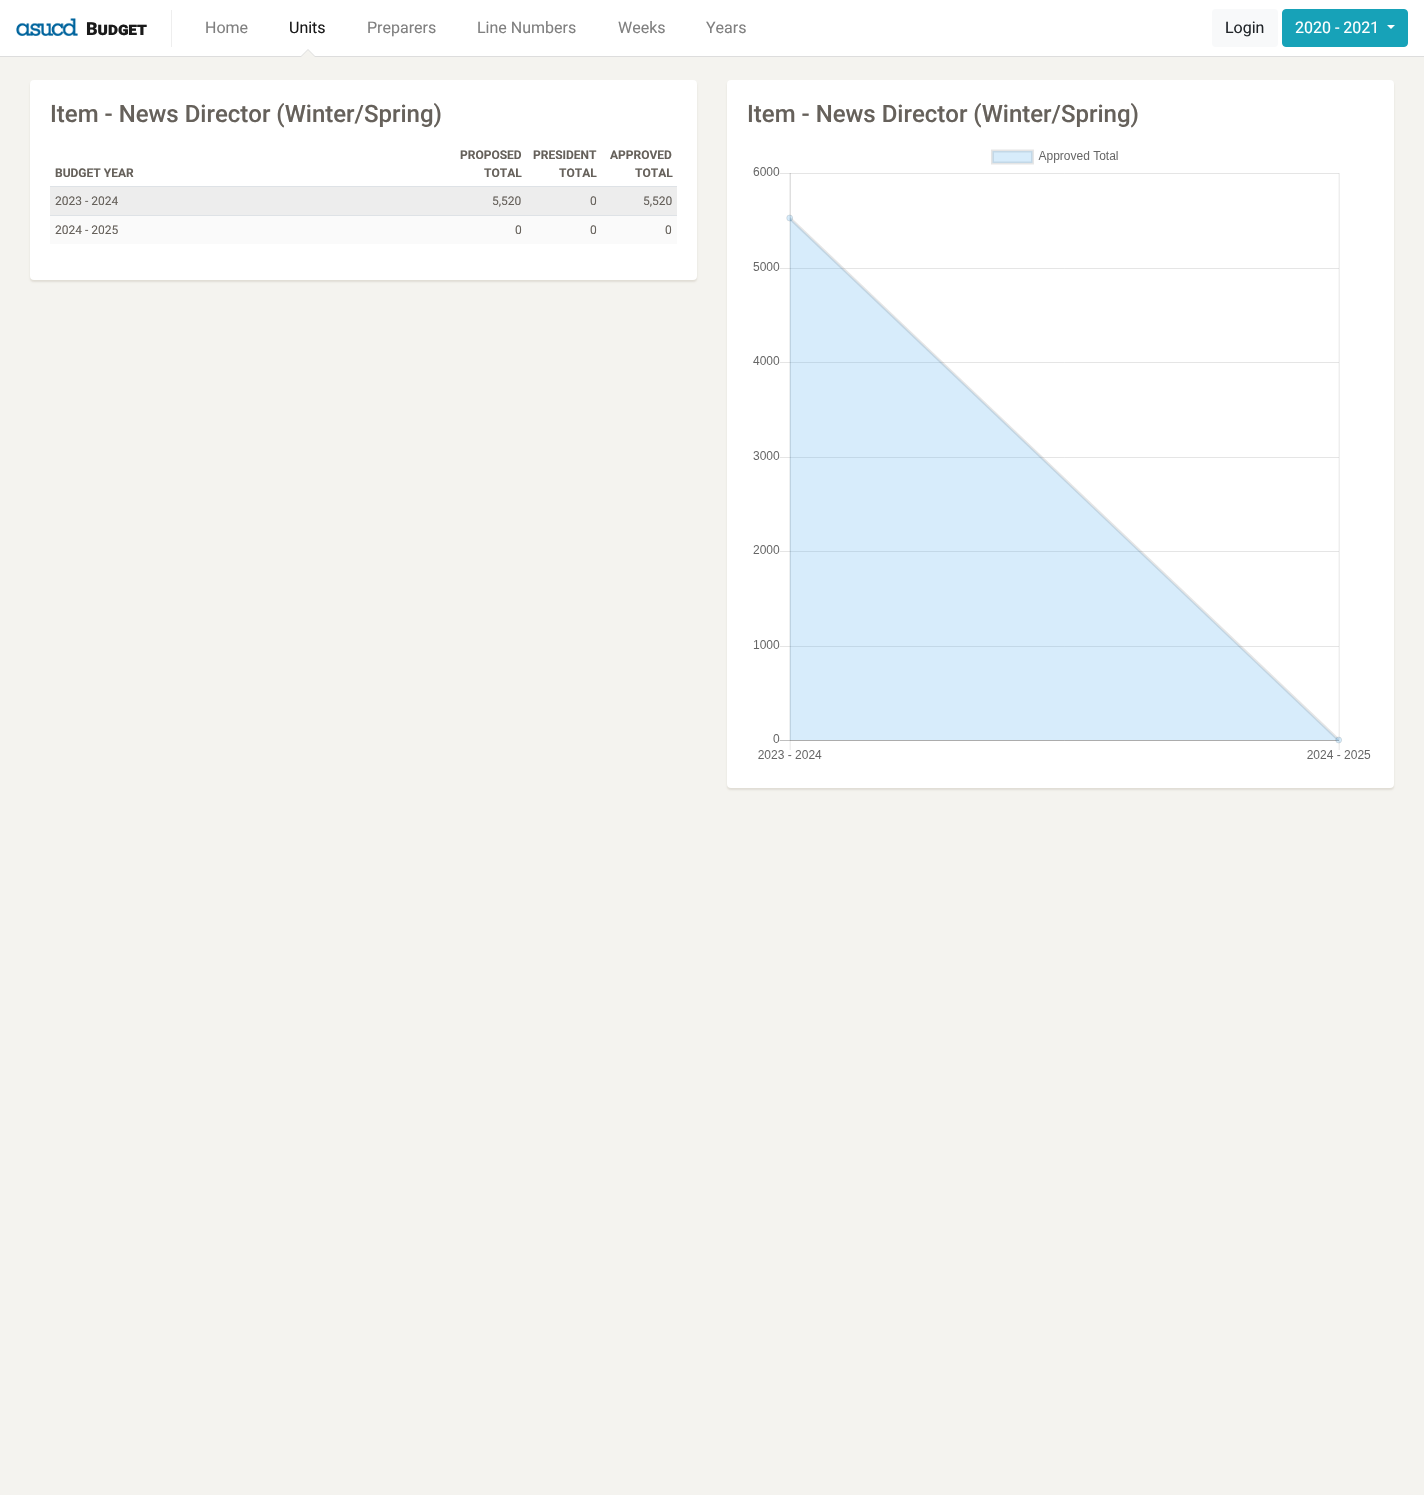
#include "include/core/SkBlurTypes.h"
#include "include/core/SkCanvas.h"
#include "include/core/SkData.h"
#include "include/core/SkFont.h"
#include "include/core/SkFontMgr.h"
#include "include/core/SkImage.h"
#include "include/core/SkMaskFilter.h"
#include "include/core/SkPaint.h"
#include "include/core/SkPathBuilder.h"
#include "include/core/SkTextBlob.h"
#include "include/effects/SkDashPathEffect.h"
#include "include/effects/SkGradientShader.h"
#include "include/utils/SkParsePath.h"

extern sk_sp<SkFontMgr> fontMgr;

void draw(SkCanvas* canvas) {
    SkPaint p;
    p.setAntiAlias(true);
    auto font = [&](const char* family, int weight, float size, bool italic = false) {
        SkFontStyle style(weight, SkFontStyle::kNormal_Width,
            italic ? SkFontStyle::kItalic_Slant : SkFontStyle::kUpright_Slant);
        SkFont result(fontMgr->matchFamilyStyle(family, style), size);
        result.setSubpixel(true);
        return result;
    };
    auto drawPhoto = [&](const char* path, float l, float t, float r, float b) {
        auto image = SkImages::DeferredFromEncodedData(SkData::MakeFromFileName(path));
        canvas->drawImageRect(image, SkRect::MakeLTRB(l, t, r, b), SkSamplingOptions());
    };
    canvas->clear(0xFFF4F3EF);
    p.setColor(0xFFFFFFFF);
    canvas->drawRect(SkRect::MakeLTRB(0, 0, 1424, 56), p);
    p.setColor(0xFFDDDDDD);
    canvas->drawRect(SkRect::MakeLTRB(0, 56, 1424, 57), p);
    drawPhoto("media/1.png", 16, 18, 78, 36);
    p.setColor(0xFFEEEEEE);
    canvas->drawRect(SkRect::MakeLTRB(171, 10, 172, 47), p);
    auto font1 = font("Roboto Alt", 900, 18);
    p.setColor(0xFF1A1A1A);
    canvas->drawString("Budget", 86, 35, font1, p);
    auto font2 = font("Roboto", 400, 16);
    p.setColor(0xFF808080);
    canvas->drawString("Home", 205, 33, font2, p);
    p.setColor(0xFF1A1A1A);
    canvas->drawString("Units", 289, 33, font2, p);
    p.setColor(0xFFDDDDDD);
    canvas->drawPath(SkPathBuilder().moveTo(315, 56).lineTo(301, 56).lineTo(308, 49).close().detach(), p);
    p.setColor(0xFFF4F3EF);
    canvas->drawPath(SkPathBuilder().moveTo(315, 57).lineTo(301, 57).lineTo(308, 50).close().detach(), p);
    p.setColor(0xFF808080);
    {
        const struct { const char* s; float x, y; } items[] = {
            {"Preparers", 367, 33},
            {"Line Numbers", 477, 33},
            {"Weeks", 618, 33},
            {"Years", 706, 33},
        };
        for (auto [s, x, y] : items) {
            canvas->drawString(s, x, y, font2, p);
        }
    }
    p.setColor(0xFFF8F9FA);
    canvas->drawRoundRect(SkRect::MakeLTRB(1212, 9, 1278, 47), 4, 4, p);
    p.setColor(0xFF212529);
    canvas->drawString("Login", 1225, 33, font2, p);
    p.setColor(0xFF17A2B8);
    canvas->drawRoundRect(SkRect::MakeLTRB(1282.5f, 9.5f, 1407.5f, 46.5f), 3.5f, 3.5f, p);
    p.setStyle(SkPaint::kStroke_Style);
    p.setStrokeWidth(1);
    canvas->drawRoundRect(SkRect::MakeLTRB(1282.5f, 9.5f, 1407.5f, 46.5f), 3.5f, 3.5f, p);
    p.setStyle(SkPaint::kFill_Style);
    p.setColor(0xFFFFFFFF);
    canvas->drawString("2020 - 2021", 1295, 33, font2, p);
    canvas->drawPath(SkPathBuilder().moveTo(1387, 25).lineTo(1395, 25).lineTo(1391, 29).close().detach(), p);
    p.setColor(0x80CCC5B9);
    p.setMaskFilter(SkMaskFilter::MakeBlur(kNormal_SkBlurStyle, 1));
    canvas->drawRoundRect(SkRect::MakeLTRB(30, 82, 697, 282), 4, 4, p);
    p.setMaskFilter(nullptr);
    p.setColor(0xFFFFFFFF);
    canvas->drawRoundRect(SkRect::MakeLTRB(30, 80, 697, 280), 4, 4, p);
    auto font3 = font("Roboto", 500, 24);
    p.setColor(0xFF66615B);
    canvas->drawString("Item - News Director (Winter/Spring)", 50, 122, font3, p);
    auto font4 = font("Roboto", 700, 12);
    {
        const struct { const char* s; float x, y; } items[] = {
            {"BUDGET YEAR", 55, 177},
            {"PROPOSED", 460, 159},
            {"TOTAL", 484, 177},
            {"PRESIDENT", 533, 159},
            {"TOTAL", 559, 177},
            {"APPROVED", 610, 159},
            {"TOTAL", 635, 177},
        };
        for (auto [s, x, y] : items) {
            canvas->drawString(s, x, y, font4, p);
        }
    }
    p.setColor(0xFFEDEDED);
    canvas->drawRect(SkRect::MakeLTRB(50, 187, 677, 215), p);
    auto font5 = font("Roboto", 400, 12);
    p.setColor(0xFF66615B);
    {
        const struct { const char* s; float x, y; } items[] = {
            {"2023 - 2024", 55, 205},
            {"5,520", 492, 205},
            {"0", 590, 205},
        };
        for (auto [s, x, y] : items) {
            canvas->drawString(s, x, y, font5, p);
        }
    }
    p.setColor(0xFFDEE2E6);
    canvas->drawRect(SkRect::MakeLTRB(50, 186, 677, 187), p);
    p.setColor(0xFF66615B);
    canvas->drawString("5,520", 643, 205, font5, p);
    p.setColor(0xFFFAFAFA);
    canvas->drawRect(SkRect::MakeLTRB(50, 216, 677, 244), p);
    p.setColor(0xFF66615B);
    {
        const struct { const char* s; float x, y; } items[] = {
            {"2024 - 2025", 55, 234},
            {"0", 515, 234},
            {"0", 590, 234},
        };
        for (auto [s, x, y] : items) {
            canvas->drawString(s, x, y, font5, p);
        }
    }
    p.setColor(0xFFDEE2E6);
    canvas->drawRect(SkRect::MakeLTRB(50, 215, 677, 216), p);
    p.setColor(0xFF66615B);
    canvas->drawString("0", 665, 234, font5, p);
    p.setColor(0x80CCC5B9);
    p.setMaskFilter(SkMaskFilter::MakeBlur(kNormal_SkBlurStyle, 1));
    canvas->drawRoundRect(SkRect::MakeLTRB(727, 82, 1394, 790), 4, 4, p);
    p.setMaskFilter(nullptr);
    p.setColor(0xFFFFFFFF);
    canvas->drawRoundRect(SkRect::MakeLTRB(727, 80, 1394, 788), 4, 4, p);
    p.setColor(0xFF66615B);
    canvas->drawString("Item - News Director (Winter/Spring)", 747, 122, font3, p);
    drawPhoto("media/2.png", 753, 149, 1371, 759);
}
